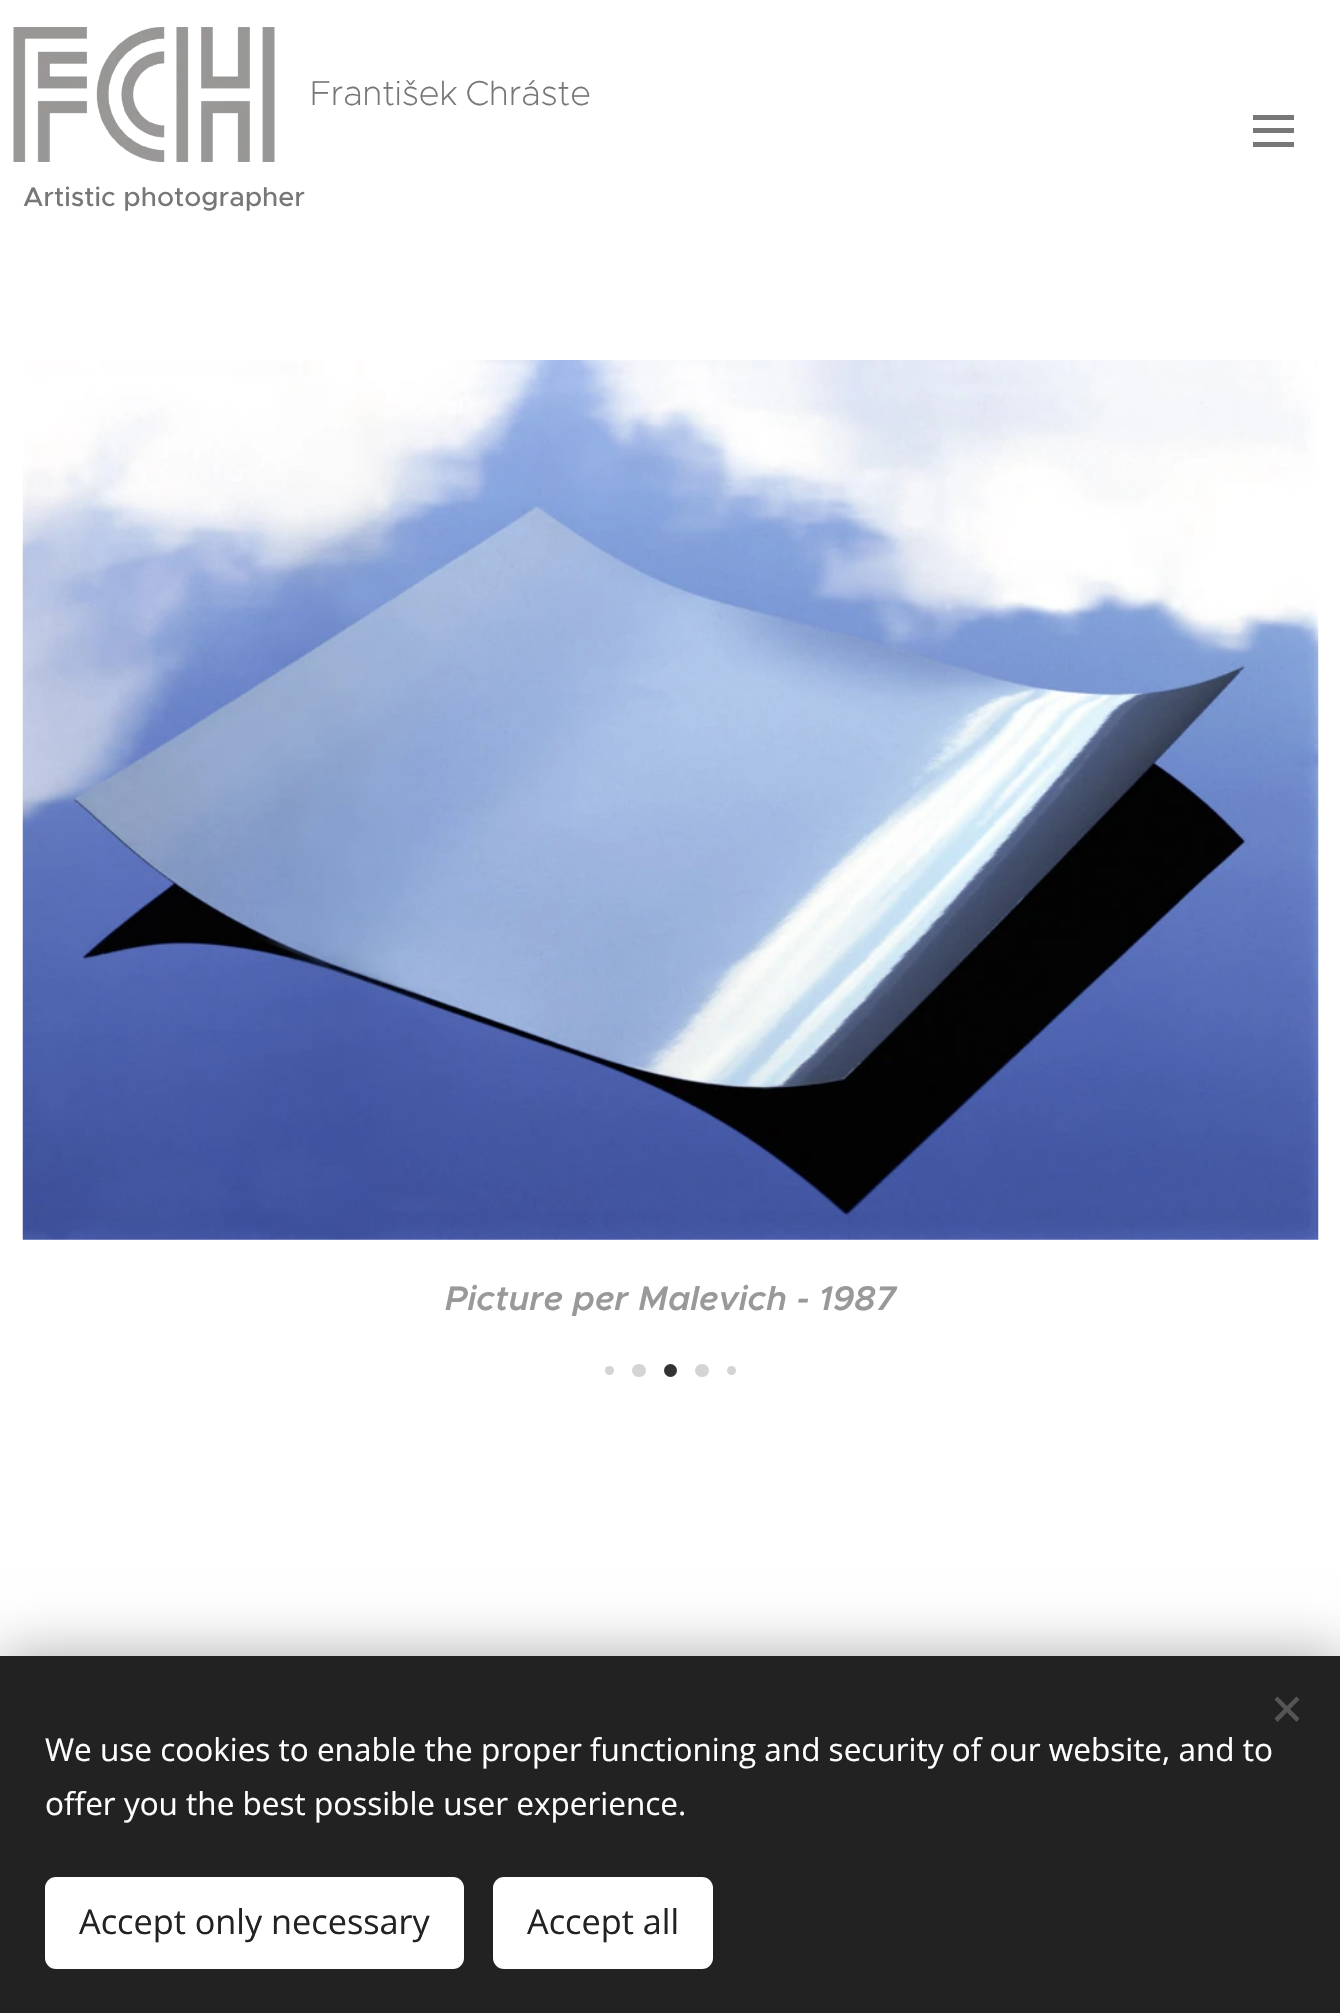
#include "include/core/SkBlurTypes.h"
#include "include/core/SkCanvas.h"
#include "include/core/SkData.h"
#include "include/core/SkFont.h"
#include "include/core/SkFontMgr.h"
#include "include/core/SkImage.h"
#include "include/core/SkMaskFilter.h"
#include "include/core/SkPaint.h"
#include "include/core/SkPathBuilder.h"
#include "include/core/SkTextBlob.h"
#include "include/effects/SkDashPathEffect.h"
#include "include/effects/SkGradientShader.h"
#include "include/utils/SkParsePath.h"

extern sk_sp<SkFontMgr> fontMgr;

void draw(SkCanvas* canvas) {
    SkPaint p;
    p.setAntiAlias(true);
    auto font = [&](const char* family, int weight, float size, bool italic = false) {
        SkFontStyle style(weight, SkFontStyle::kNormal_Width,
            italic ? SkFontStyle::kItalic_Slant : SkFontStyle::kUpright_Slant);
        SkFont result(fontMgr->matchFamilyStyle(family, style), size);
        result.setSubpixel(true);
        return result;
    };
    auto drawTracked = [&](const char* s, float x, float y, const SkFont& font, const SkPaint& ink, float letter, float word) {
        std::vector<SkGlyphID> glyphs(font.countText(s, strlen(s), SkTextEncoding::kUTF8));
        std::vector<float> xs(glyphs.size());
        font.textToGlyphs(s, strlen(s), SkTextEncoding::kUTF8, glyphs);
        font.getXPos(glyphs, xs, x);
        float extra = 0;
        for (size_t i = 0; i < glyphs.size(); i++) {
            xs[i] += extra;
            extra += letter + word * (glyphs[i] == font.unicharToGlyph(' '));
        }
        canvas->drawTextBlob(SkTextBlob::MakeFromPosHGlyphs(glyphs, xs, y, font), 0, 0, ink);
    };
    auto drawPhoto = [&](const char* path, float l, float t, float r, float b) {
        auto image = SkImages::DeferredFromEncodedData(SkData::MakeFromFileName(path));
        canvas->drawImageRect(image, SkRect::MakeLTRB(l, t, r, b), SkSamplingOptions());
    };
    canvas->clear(0xFFFFFFFF);
    drawPhoto("media/1.png", 13, 27, 275, 162);
    auto font1 = font("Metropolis", 200, 34.75f);
    p.setColor(0xFF777777);
    drawTracked("František Chráste", 310, 105, font1, p, 0, -2);
    auto font2 = font("Metropolis", 500, 27);
    canvas->drawString("Artistic photographer", 23, 206, font2, p);
    {
        const struct { float l, t, r, b; SkColor color; } items[] = {
            {1253, 128, 1294, 133, 0xFF777777},
            {1253, 115, 1294, 120, 0xFF777777},
            {1253, 142, 1294, 147, 0xFF777777},
        };
        for (auto [l, t, r, b, color] : items) {
            p.setColor(color);
            canvas->drawRect(SkRect::MakeLTRB(l, t, r, b), p);
        }
    }
    drawPhoto("media/2.png", 22, 360, 1319, 1240);
    auto font3 = font("Metropolis", 600, 34.25f, true);
    p.setColor(0xFF999999);
    canvas->drawString("Picture per Malevich - 1987", 445, 1310, font3, p);
    p.setColor(0xFFD4D4D4);
    canvas->drawCircle(609.5f, 1370.5f, 4.5f, p);
    canvas->drawRoundRect(SkRect::MakeLTRB(632, 1364, 646, 1377), 6.5f, 6.5f, p);
    p.setColor(0xFF333333);
    canvas->drawCircle(670.5f, 1370.5f, 6.5f, p);
    p.setColor(0xFFD4D4D4);
    canvas->drawRoundRect(SkRect::MakeLTRB(695, 1364, 709, 1377), 6.5f, 6.5f, p);
    canvas->drawCircle(731.5f, 1370.5f, 4.5f, p);
    p.setColor(0x54000000);
    p.setMaskFilter(SkMaskFilter::MakeBlur(kNormal_SkBlurStyle, 28));
    canvas->drawRect(SkRect::MakeLTRB(0, 1656, 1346, 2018), p);
    p.setMaskFilter(nullptr);
    p.setColor(0xFF222222);
    canvas->drawRect(SkRect::MakeLTRB(0, 1656, 1340, 2013), p);
    p.setColor(0xFF555555);
    canvas->drawPath(SkPathBuilder().moveTo(1274.5f, 1718.5f).lineTo(1296.5f, 1696.5f).lineTo(1299.5f, 1699.5f).lineTo(1277.5f, 1722).close().detach(), p);
    canvas->drawPath(SkPathBuilder().moveTo(1277.5f, 1696.5f).lineTo(1299.5f, 1718.5f).lineTo(1296.5f, 1722).lineTo(1274.5f, 1699.5f).close().detach(), p);
    auto font4 = font("Open Sans", 400, 31.5f);
    p.setColor(0xFFFFFFFF);
    canvas->drawString("We use cookies to enable the proper functioning and security of our website, and to", 45, 1761, font4, p);
    canvas->drawString("offer you the best possible user experience.", 45, 1815, font4, p);
    canvas->drawRoundRect(SkRect::MakeLTRB(45, 1877, 464, 1969), 11, 11, p);
    auto font5 = font("Open Sans", 400, 34.25f);
    p.setColor(0xFF222222);
    canvas->drawString("Accept only necessary", 79, 1934, font5, p);
    p.setColor(0xFFFFFFFF);
    canvas->drawRoundRect(SkRect::MakeLTRB(493, 1877, 713, 1969), 11, 11, p);
    p.setColor(0xFF222222);
    canvas->drawString("Accept all", 527, 1934, font5, p);
}
